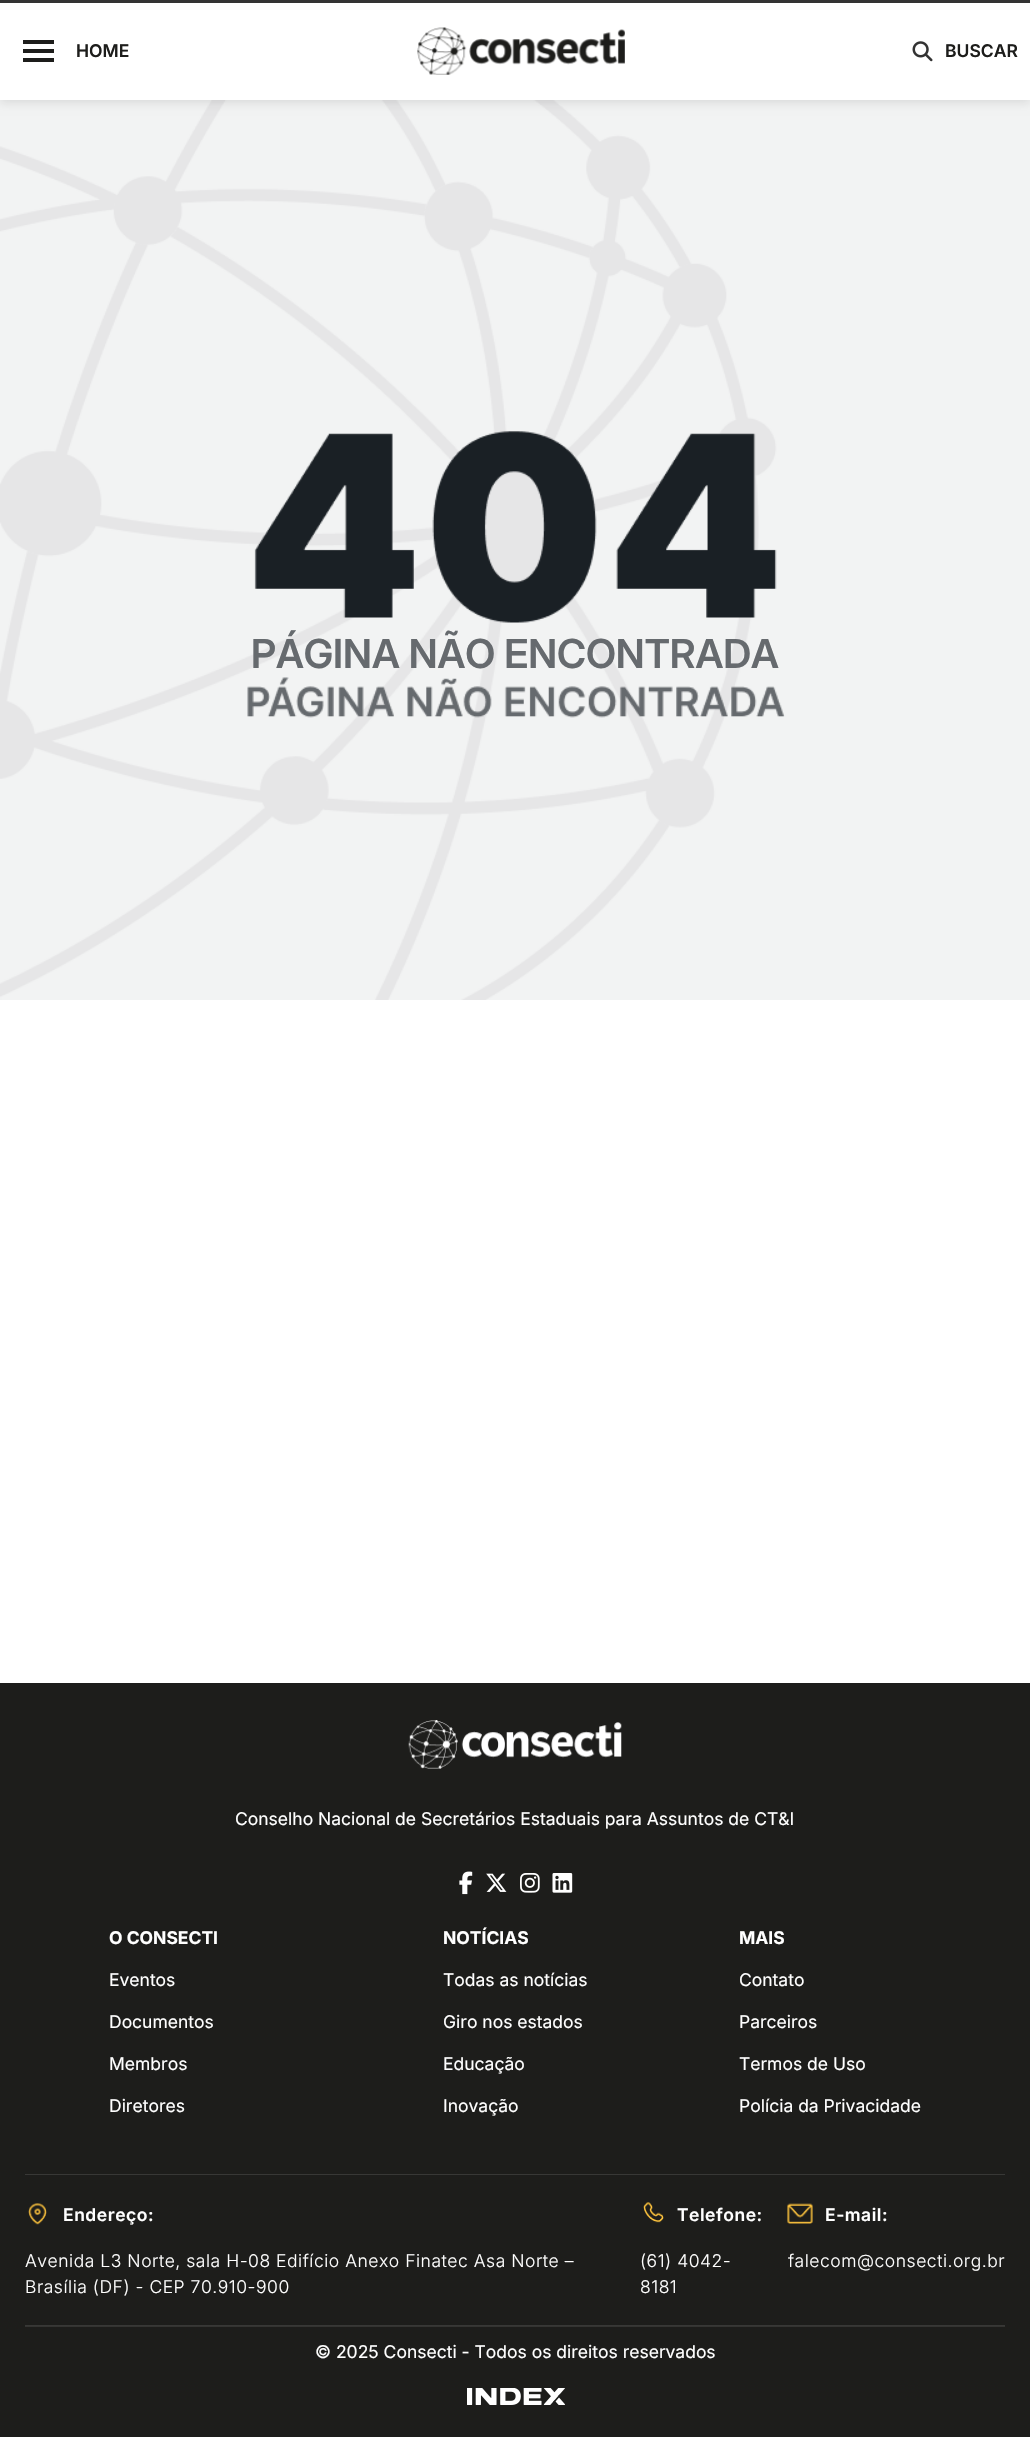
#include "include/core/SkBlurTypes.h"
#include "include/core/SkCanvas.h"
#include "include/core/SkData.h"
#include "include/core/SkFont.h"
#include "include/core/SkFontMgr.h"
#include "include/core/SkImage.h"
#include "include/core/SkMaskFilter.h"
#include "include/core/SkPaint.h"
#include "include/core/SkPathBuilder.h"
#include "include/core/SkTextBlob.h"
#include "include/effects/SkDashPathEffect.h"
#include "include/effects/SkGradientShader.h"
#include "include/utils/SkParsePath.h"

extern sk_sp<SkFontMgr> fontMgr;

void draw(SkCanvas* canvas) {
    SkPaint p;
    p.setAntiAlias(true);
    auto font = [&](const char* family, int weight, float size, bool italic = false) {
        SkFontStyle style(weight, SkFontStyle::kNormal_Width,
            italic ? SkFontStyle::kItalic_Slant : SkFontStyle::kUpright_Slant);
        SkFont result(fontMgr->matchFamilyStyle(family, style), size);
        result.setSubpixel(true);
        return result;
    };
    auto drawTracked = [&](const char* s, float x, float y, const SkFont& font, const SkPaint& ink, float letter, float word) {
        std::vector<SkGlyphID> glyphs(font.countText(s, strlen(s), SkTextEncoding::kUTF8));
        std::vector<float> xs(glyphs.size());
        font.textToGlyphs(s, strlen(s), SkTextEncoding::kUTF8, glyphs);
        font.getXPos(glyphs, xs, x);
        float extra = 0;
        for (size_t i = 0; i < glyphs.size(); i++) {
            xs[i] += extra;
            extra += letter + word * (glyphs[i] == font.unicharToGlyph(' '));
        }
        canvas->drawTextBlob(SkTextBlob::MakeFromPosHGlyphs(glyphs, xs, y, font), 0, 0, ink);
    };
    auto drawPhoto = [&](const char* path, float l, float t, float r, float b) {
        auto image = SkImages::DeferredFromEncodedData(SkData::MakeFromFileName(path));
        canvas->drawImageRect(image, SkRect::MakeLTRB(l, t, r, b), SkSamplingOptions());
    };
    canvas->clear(0xFFFFFFFF);
    drawPhoto("media/3.png", 0, 100, 1030, 1000);
    p.setColor(0x1A000000);
    p.setMaskFilter(SkMaskFilter::MakeBlur(kNormal_SkBlurStyle, 4.5f));
    canvas->drawRect(SkRect::MakeLTRB(0, 3, 1030, 103), p);
    p.setMaskFilter(nullptr);
    {
        const struct { float l, t, r, b; SkColor color; } items[] = {
            {0, 3, 1030, 100, 0xFFFFFFFF},
            {0, 0, 1030, 3, 0xFF333333},
            {23, 49, 54, 53, 0xFF1D1D1B},
            {23, 40, 54, 44, 0xFF1D1D1B},
            {23, 58, 54, 62, 0xFF1D1D1B},
        };
        for (auto [l, t, r, b, color] : items) {
            p.setColor(color);
            canvas->drawRect(SkRect::MakeLTRB(l, t, r, b), p);
        }
    }
    auto font1 = font("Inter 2", 600, 17.5f);
    canvas->drawString("HOME", 76, 57, font1, p);
    drawPhoto("media/1.png", 417, 27, 625, 75);
    drawPhoto("media/2.png", 912, 41, 933, 62);
    canvas->drawString("BUSCAR", 945, 57, font1, p);
    auto font2 = font("Inter", 600, 40);
    p.setColor(0xFF666A6E);
    canvas->drawString("PÁGINA NÃO ENCONTRADA", 251, 668, font2, p);
    p.setColor(0xFF1D1D1B);
    canvas->drawRect(SkRect::MakeLTRB(0, 1683, 1030, 2437), p);
    drawPhoto("media/4.png", 408, 1720, 622, 1769);
    auto font3 = font("Inter", 400, 17.5f);
    p.setColor(0xFFFFFFFF);
    canvas->drawString("Conselho Nacional de Secretários Estaduais para Assuntos de CT&I", 235, 1825, font3, p);
    drawPhoto("media/5.png", 459, 1871, 473, 1895);
    drawPhoto("media/6.png", 486, 1873, 507, 1892);
    drawPhoto("media/7.png", 520, 1873, 540, 1893);
    drawPhoto("media/8.png", 552, 1873, 573, 1893);
    auto font4 = font("Inter", 700, 17.5f);
    canvas->drawString("O CONSECTI", 109, 1944, font4, p);
    {
        const struct { const char* s; float x, y; } items[] = {
            {"Eventos", 109, 1986},
            {"Documentos", 109, 2028},
            {"Membros", 109, 2070},
            {"Diretores", 109, 2112},
        };
        for (auto [s, x, y] : items) {
            canvas->drawString(s, x, y, font3, p);
        }
    }
    canvas->drawString("NOTÍCIAS", 443, 1944, font4, p);
    {
        const struct { const char* s; float x, y; } items[] = {
            {"Todas as notícias", 443, 1986},
            {"Giro nos estados", 443, 2028},
            {"Educação", 443, 2070},
            {"Inovação", 443, 2112},
        };
        for (auto [s, x, y] : items) {
            canvas->drawString(s, x, y, font3, p);
        }
    }
    canvas->drawString("MAIS", 739, 1944, font4, p);
    {
        const struct { const char* s; float x, y; } items[] = {
            {"Contato", 739, 1986},
            {"Parceiros", 739, 2028},
            {"Termos de Uso", 739, 2070},
            {"Polícia da Privacidade", 739, 2112},
        };
        for (auto [s, x, y] : items) {
            canvas->drawString(s, x, y, font3, p);
        }
    }
    p.setColor(0xFF383836);
    canvas->drawRect(SkRect::MakeLTRB(25, 2174, 1005, 2175), p);
    canvas->drawRect(SkRect::MakeLTRB(25, 2325, 1005, 2326), p);
    drawPhoto("media/9.png", 28, 2203, 47, 2225);
    p.setColor(0xFFFFFFFF);
    drawTracked("Endereço:", 63, 2221, font1, p, 0.53f, 0);
    auto font5 = font("Inter", 300, 17.5f);
    drawTracked("Avenida L3 Norte, sala H-08 Edifício Anexo Finatec Asa Norte –", 25, 2267, font5, p, 0.53f, 0);
    drawTracked("Brasília (DF) - CEP 70.910-900", 25, 2293, font5, p, 0.53f, 0);
    drawPhoto("media/10.png", 643, 2202, 664, 2223);
    drawTracked("Telefone:", 677, 2221, font1, p, 0.53f, 0);
    drawTracked("(61) 4042-", 640, 2267, font5, p, 0.53f, 0);
    drawTracked("8181", 640, 2293, font5, p, 0.53f, 0);
    drawPhoto("media/11.png", 787, 2203, 813, 2224);
    drawTracked("E-mail:", 825, 2221, font1, p, 0.53f, 0);
    drawTracked("falecom@consecti.org.br", 788, 2267, font5, p, 0.53f, 0);
    p.setColor(0xFF343432);
    canvas->drawRect(SkRect::MakeLTRB(25, 2326, 1005, 2327), p);
    p.setColor(0xFFFFFFFF);
    canvas->drawString("© 2025 Consecti - Todos os direitos reservados", 315, 2358, font3, p);
    drawPhoto("media/12.png", 467, 2388, 565, 2405);
}
